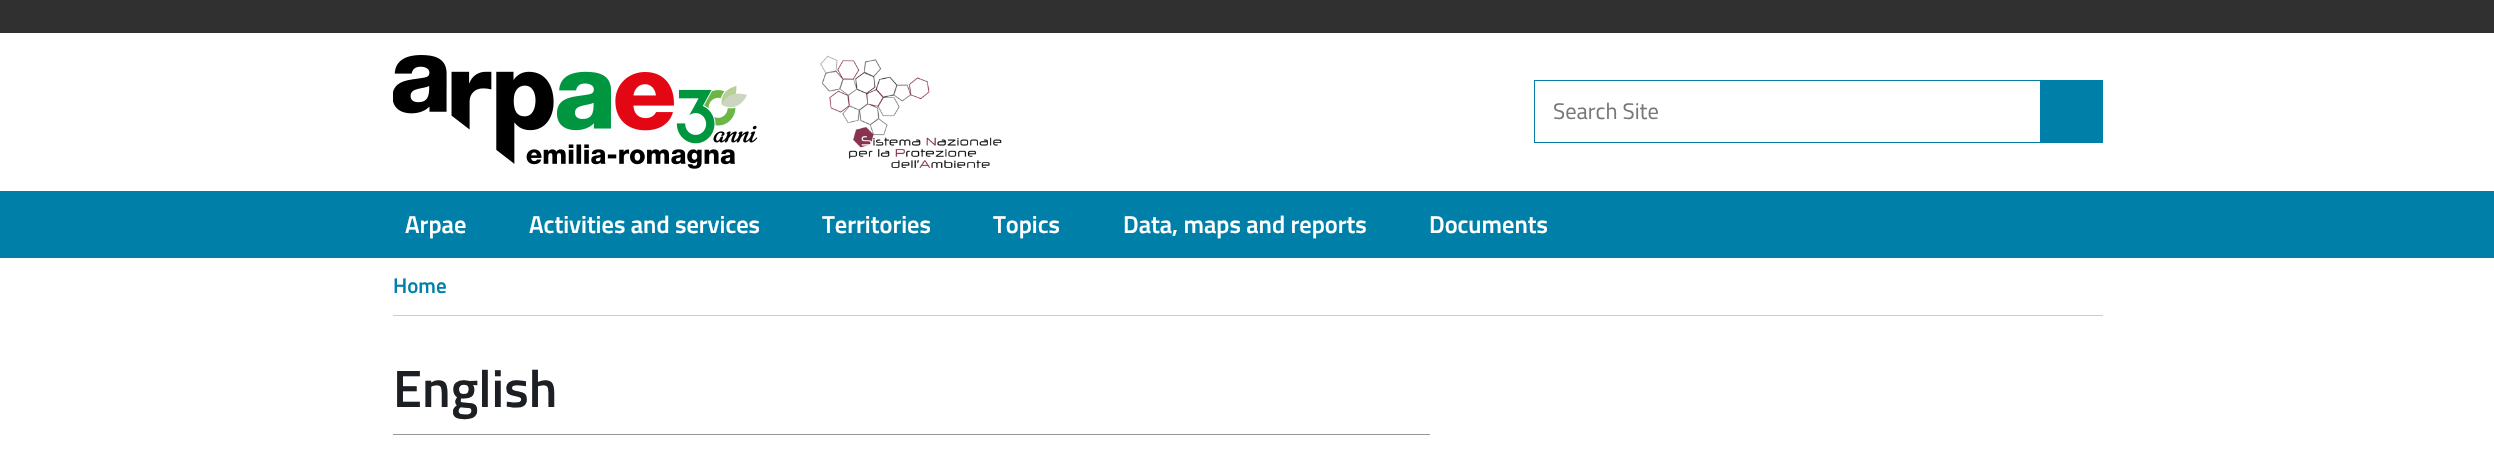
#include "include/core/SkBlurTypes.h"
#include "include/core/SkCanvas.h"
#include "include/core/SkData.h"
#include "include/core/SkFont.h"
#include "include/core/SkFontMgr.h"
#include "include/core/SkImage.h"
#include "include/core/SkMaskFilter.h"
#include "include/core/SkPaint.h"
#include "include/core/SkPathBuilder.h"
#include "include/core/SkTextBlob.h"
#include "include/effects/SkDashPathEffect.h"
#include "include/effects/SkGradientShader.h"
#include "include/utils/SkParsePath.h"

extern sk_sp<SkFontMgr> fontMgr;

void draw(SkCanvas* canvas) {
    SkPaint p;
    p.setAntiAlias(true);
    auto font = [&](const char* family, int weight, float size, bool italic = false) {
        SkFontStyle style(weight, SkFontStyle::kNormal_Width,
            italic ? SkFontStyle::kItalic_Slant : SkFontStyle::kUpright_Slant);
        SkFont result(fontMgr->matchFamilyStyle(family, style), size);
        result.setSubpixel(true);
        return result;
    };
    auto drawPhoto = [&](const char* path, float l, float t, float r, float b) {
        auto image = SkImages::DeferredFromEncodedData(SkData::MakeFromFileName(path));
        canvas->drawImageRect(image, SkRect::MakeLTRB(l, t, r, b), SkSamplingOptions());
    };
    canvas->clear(0xFFFFFFFF);
    p.setColor(0xFF303030);
    canvas->drawRect(SkRect::MakeLTRB(0, 0, 2494, 33), p);
    drawPhoto("media/1.png", 393, 55, 758, 169);
    drawPhoto("media/2.png", 820, 55, 1002, 168);
    p.setStyle(SkPaint::kStroke_Style);
    p.setStrokeWidth(1);
    p.setColor(0xFF0080A9);
    canvas->drawRect(SkRect::MakeLTRB(1534.5f, 80.5f, 2045.5f, 142.5f), p);
    auto font1 = font("Titillium Web", 400, 22.5f);
    p.setStyle(SkPaint::kFill_Style);
    p.setColor(0xFF777777);
    canvas->drawString("Search Site", 1553, 119, font1, p);
    p.setColor(0xFF0080A9);
    canvas->drawRect(SkRect::MakeLTRB(2040, 80, 2103, 143), p);
    canvas->drawRect(SkRect::MakeLTRB(0, 191, 2494, 258), p);
    auto font2 = font("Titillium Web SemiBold", 600, 24.4f);
    p.setColor(0xFFFFFFFF);
    {
        const struct { const char* s; float x, y; } items[] = {
            {"Arpae", 405, 233},
            {"Activities and services", 529, 233},
            {"Territories", 822, 233},
            {"Topics", 993, 233},
            {"Data, maps and reports", 1123, 233},
            {"Documents", 1429, 233},
        };
        for (auto [s, x, y] : items) {
            canvas->drawString(s, x, y, font2, p);
        }
    }
    p.setColor(0xFFCCCCCC);
    canvas->drawRect(SkRect::MakeLTRB(393, 315, 2103, 316), p);
    auto font3 = font("Titillium Web SemiBold", 600, 21);
    p.setColor(0xFF0080A9);
    canvas->drawString("Home", 393, 293, font3, p);
    auto font4 = font("Titillium Web SemiBold", 600, 52.5f);
    p.setColor(0xFF1C2024);
    canvas->drawString("English", 393, 407, font4, p);
    p.setColor(0xFF979797);
    canvas->drawRect(SkRect::MakeLTRB(393, 434, 1430, 435), p);
}
